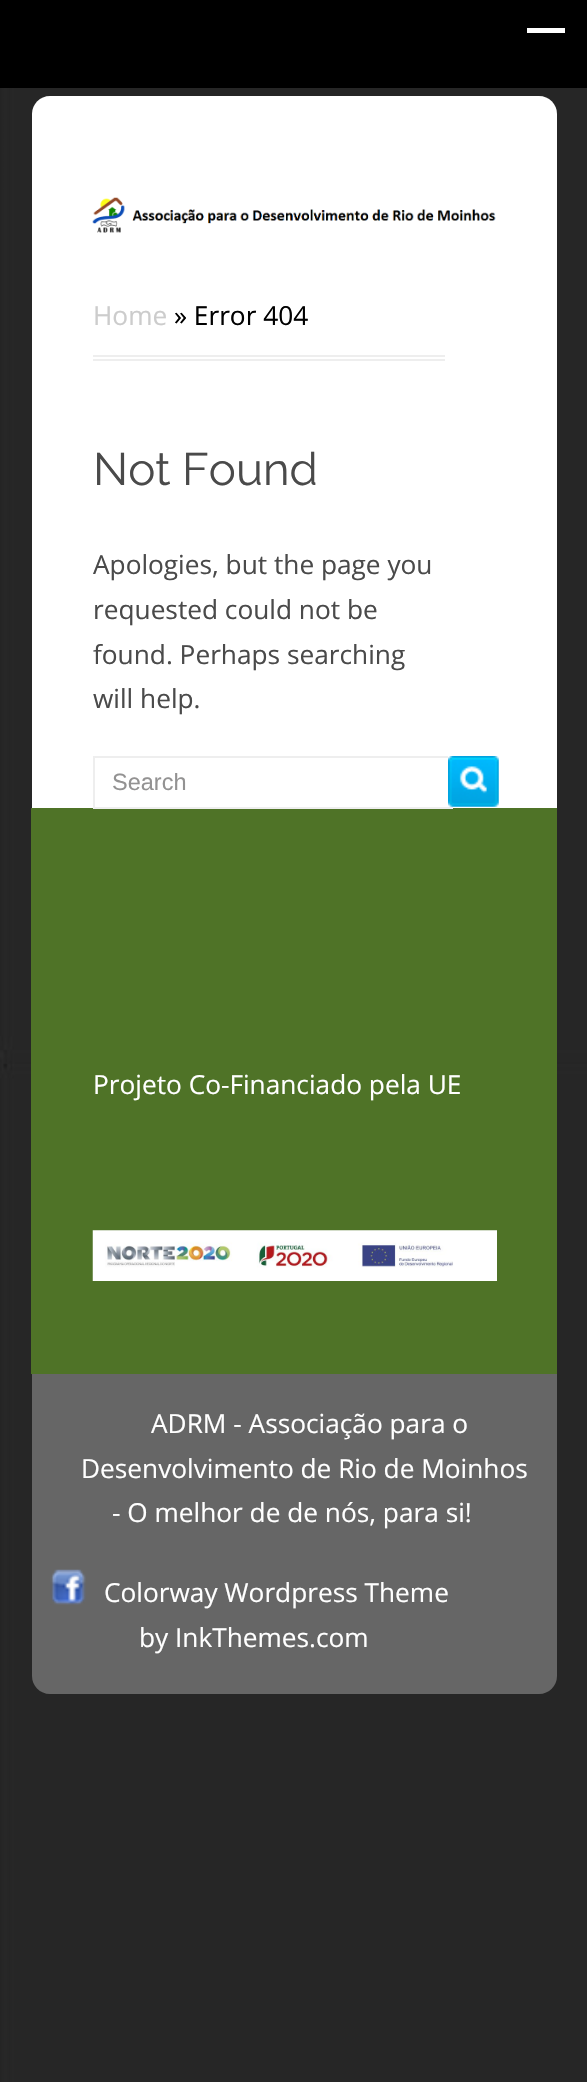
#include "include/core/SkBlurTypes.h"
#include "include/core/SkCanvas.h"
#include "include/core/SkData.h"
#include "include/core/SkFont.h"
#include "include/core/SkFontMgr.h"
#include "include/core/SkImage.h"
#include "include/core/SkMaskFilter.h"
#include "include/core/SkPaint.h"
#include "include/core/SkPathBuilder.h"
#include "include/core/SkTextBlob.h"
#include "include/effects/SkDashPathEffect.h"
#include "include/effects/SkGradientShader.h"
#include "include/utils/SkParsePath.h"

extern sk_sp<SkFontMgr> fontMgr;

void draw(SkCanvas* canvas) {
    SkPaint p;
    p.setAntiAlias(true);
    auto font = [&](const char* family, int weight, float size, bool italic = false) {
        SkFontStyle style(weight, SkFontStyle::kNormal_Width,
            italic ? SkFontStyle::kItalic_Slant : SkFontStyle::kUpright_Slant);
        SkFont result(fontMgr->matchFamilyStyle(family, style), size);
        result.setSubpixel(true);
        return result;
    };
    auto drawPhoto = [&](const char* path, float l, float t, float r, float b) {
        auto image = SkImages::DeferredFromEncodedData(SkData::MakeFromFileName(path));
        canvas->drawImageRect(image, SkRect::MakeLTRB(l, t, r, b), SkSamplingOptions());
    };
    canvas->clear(0xFFFFFFFF);
    drawPhoto("media/1.png", 0, 88, 587, 2082);
    p.setColor(0xFF000000);
    canvas->drawRect(SkRect::MakeLTRB(0, 0, 587, 88), p);
    p.setColor(0xFFFFFFFF);
    canvas->drawRect(SkRect::MakeLTRB(527, 28, 565, 33), p);
    canvas->drawPath(SkPathBuilder().moveTo(50, 96).lineTo(539, 96).cubicTo(549, 96, 557, 104, 557, 114).lineTo(557, 809).lineTo(32, 809).lineTo(32, 114).cubicTo(32, 104, 40, 96, 50, 96).close().detach(), p);
    drawPhoto("media/2.png", 92, 197, 496, 233);
    p.setColor(0xFFEEEEEE);
    canvas->drawRect(SkRect::MakeLTRB(93, 355, 445, 357), p);
    canvas->drawRect(SkRect::MakeLTRB(93, 359, 445, 361), p);
    auto font1 = font("Open Sans", 400, 26.25f);
    p.setColor(0xFFCCCCCC);
    canvas->drawString("Home", 93, 325, font1, p);
    p.setColor(0xFF000000);
    canvas->drawString("» Error 404", 174, 325, font1, p);
    auto font2 = font("Raleway", 400, 45.5f);
    p.setColor(0xFF4A4A4A);
    canvas->drawString("Not Found", 93, 485, font2, p);
    {
        const struct { const char* s; float x, y; } items[] = {
            {"Apologies, but the page you", 93, 574},
            {"requested could not be", 93, 619},
            {"found. Perhaps searching", 93, 664},
            {"will help.", 93, 708},
        };
        for (auto [s, x, y] : items) {
            canvas->drawString(s, x, y, font1, p);
        }
    }
    p.setColor(0xFF4F7327);
    canvas->drawRect(SkRect::MakeLTRB(31, 808, 557, 1374), p);
    p.setStyle(SkPaint::kStroke_Style);
    p.setStrokeWidth(2);
    p.setColor(0xFFEEEEEE);
    canvas->drawRect(SkRect::MakeLTRB(94, 757, 452, 808), p);
    auto font3 = font("Liberation Sans", 400, 23.5f);
    p.setStyle(SkPaint::kFill_Style);
    p.setColor(0xFF939292);
    canvas->drawString("Search", 112, 790, font3, p);
    drawPhoto("media/3.png", 448, 756, 499, 807);
    p.setColor(0xFFFFFFFF);
    canvas->drawString("Projeto Co-Financiado pela UE", 93, 1094, font1, p);
    drawPhoto("media/4.png", 92, 1230, 497, 1281);
    p.setColor(0xFF666666);
    canvas->drawPath(SkPathBuilder().moveTo(32, 1374).lineTo(557, 1374).lineTo(557, 1676).cubicTo(557, 1686, 549, 1694, 539, 1694).lineTo(50, 1694).cubicTo(40, 1694, 32, 1686, 32, 1676).close().detach(), p);
    p.setColor(0xFFFFFFFF);
    {
        const struct { const char* s; float x, y; } items[] = {
            {"ADRM - Associação para o", 151, 1433},
            {"Desenvolvimento de Rio de Moinhos", 81, 1478},
            {"- O melhor de de nós, para si!", 112, 1522},
        };
        for (auto [s, x, y] : items) {
            canvas->drawString(s, x, y, font1, p);
        }
    }
    drawPhoto("media/5.png", 50, 1569, 86, 1605);
    canvas->drawString("Colorway Wordpress Theme", 104, 1602, font1, p);
    canvas->drawString("by InkThemes.com", 139, 1647, font1, p);
}
